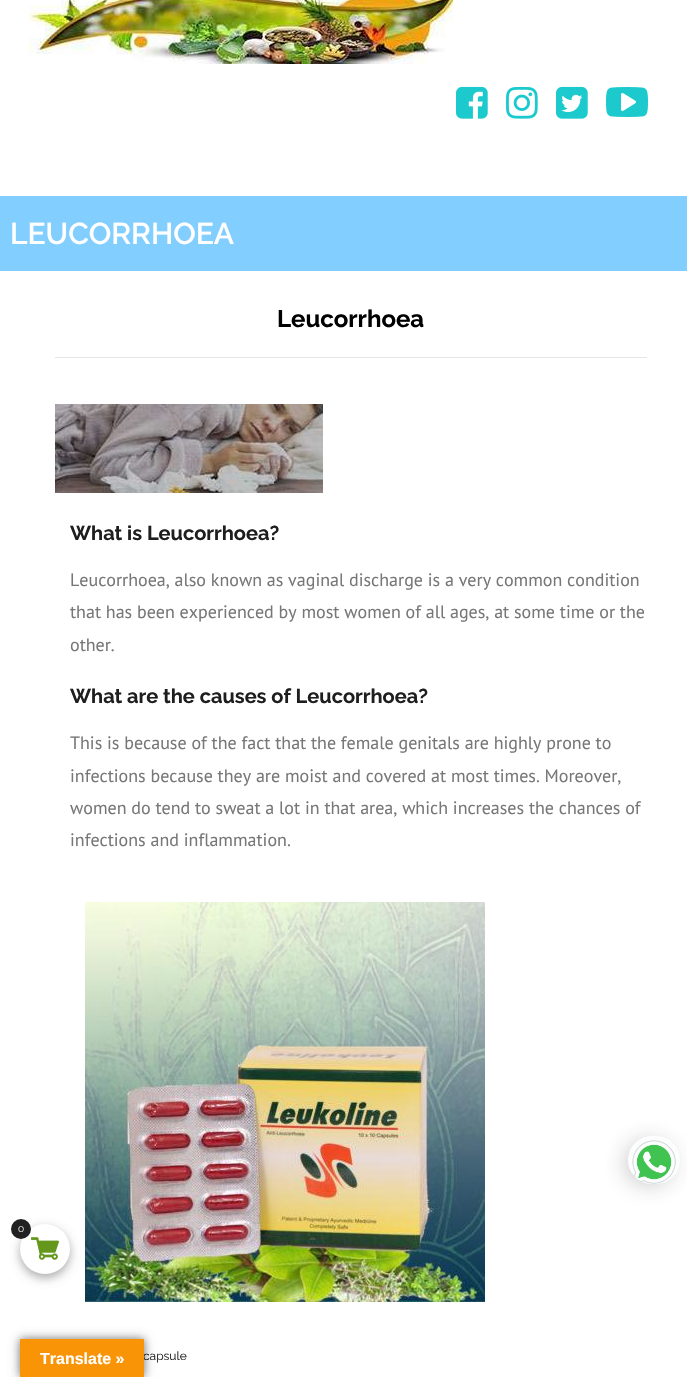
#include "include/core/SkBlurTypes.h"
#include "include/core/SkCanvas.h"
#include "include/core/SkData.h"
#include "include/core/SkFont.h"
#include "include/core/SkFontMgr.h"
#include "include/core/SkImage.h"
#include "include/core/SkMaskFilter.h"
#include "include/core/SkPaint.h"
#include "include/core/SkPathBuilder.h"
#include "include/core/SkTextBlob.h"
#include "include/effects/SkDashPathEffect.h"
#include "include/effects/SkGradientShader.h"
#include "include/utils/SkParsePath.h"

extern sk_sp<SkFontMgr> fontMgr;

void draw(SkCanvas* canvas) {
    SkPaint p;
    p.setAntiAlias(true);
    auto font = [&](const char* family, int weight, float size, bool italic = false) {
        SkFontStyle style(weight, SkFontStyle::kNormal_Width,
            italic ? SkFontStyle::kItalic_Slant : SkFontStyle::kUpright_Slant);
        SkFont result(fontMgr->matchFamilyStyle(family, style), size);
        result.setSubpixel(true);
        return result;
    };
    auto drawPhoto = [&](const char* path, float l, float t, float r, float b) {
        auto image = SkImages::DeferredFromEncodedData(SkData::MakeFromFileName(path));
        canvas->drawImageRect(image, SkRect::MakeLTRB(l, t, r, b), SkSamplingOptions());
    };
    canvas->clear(0xFFFFFFFF);
    drawPhoto("media/1.png", 29, 0, 453, 64);
    drawPhoto("media/2.png", 456, 86, 488, 119);
    drawPhoto("media/3.png", 506, 86, 538, 119);
    drawPhoto("media/4.png", 556, 86, 588, 119);
    drawPhoto("media/5.png", 606, 87, 648, 117);
    p.setColor(0xFF81CEFF);
    canvas->drawRect(SkRect::MakeLTRB(0, 196, 687, 271), p);
    auto font1 = font("Raleway", 600, 30);
    p.setColor(0xFFFFFFFF);
    canvas->drawString("LEUCORRHOEA", 10, 244, font1, p);
    auto font2 = font("Raleway", 700, 24);
    p.setColor(0xFF000000);
    canvas->drawString("Leucorrhoea", 277, 327, font2, p);
    p.setColor(0xFFE6E6E6);
    canvas->drawRect(SkRect::MakeLTRB(55, 357, 647, 358), p);
    drawPhoto("media/6.png", 55, 404, 323, 493);
    auto font3 = font("Raleway", 700, 20);
    p.setColor(0xFF1E1E1E);
    canvas->drawString("What is Leucorrhoea?", 70, 540, font3, p);
    auto font4 = font("PT Sans", 400, 18);
    p.setColor(0xFF777777);
    {
        const struct { const char* s; float x, y; } items[] = {
            {"Leucorrhoea, also known as vaginal discharge is a very common condition", 70, 586},
            {"that has been experienced by most women of all ages, at some time or the", 70, 618},
            {"other.", 70, 651},
        };
        for (auto [s, x, y] : items) {
            canvas->drawString(s, x, y, font4, p);
        }
    }
    p.setColor(0xFF1E1E1E);
    canvas->drawString("What are the causes of Leucorrhoea?", 70, 703, font3, p);
    p.setColor(0xFF777777);
    {
        const struct { const char* s; float x, y; } items[] = {
            {"This is because of the fact that the female genitals are highly prone to", 70, 749},
            {"infections because they are moist and covered at most times. Moreover,", 70, 782},
            {"women do tend to sweat a lot in that area, which increases the chances of", 70, 814},
            {"infections and inflammation.", 70, 846},
        };
        for (auto [s, x, y] : items) {
            canvas->drawString(s, x, y, font4, p);
        }
    }
    drawPhoto("media/7.png", 85, 902, 485, 1302);
    auto font5 = font("Raleway", 400, 12);
    p.setColor(0xFF1E1E1E);
    canvas->drawString("capsule", 143, 1360, font5, p);
    p.setColor(0x4F2A2A2A);
    p.setMaskFilter(SkMaskFilter::MakeBlur(kNormal_SkBlurStyle, 12.5f));
    canvas->drawRoundRect(SkRect::MakeLTRB(627, 1143, 671, 1183), 20, 20, p);
    p.setMaskFilter(nullptr);
    drawPhoto("media/8.png", 628, 1136, 680, 1184);
    p.setColor(0x2B000000);
    p.setMaskFilter(SkMaskFilter::MakeBlur(kNormal_SkBlurStyle, 5));
    canvas->drawRoundRect(SkRect::MakeLTRB(20, 1228, 70, 1278), 25, 25, p);
    p.setMaskFilter(nullptr);
    p.setMaskFilter(SkMaskFilter::MakeBlur(kNormal_SkBlurStyle, 5));
    canvas->drawRoundRect(SkRect::MakeLTRB(20, 1228, 70, 1278), 25, 25, p);
    p.setMaskFilter(nullptr);
    p.setColor(0xFFFFFFFF);
    canvas->drawCircle(45, 1249, 25, p);
    p.setColor(0xFF212121);
    canvas->drawCircle(21, 1229, 10, p);
    auto font6 = font("Raleway", 300, 10);
    p.setColor(0xFFFFFFFF);
    canvas->drawString("0", 18, 1232, font6, p);
    drawPhoto("media/9.png", 31, 1237, 59, 1260);
    p.setColor(0x4D000000);
    p.setMaskFilter(SkMaskFilter::MakeBlur(kNormal_SkBlurStyle, 4.5f));
    canvas->drawRect(SkRect::MakeLTRB(20, 1339, 144, 1377), p);
    p.setMaskFilter(nullptr);
    p.setMaskFilter(SkMaskFilter::MakeBlur(kNormal_SkBlurStyle, 4.5f));
    canvas->drawRect(SkRect::MakeLTRB(20, 1339, 144, 1377), p);
    p.setMaskFilter(nullptr);
    p.setColor(0xFFF89406);
    canvas->drawRect(SkRect::MakeLTRB(20, 1339, 144, 1377), p);
    auto font7 = font("Liberation Sans", 700, 16);
    p.setColor(0xFFFFFFFF);
    canvas->drawString("Translate »", 40, 1364, font7, p);
}
